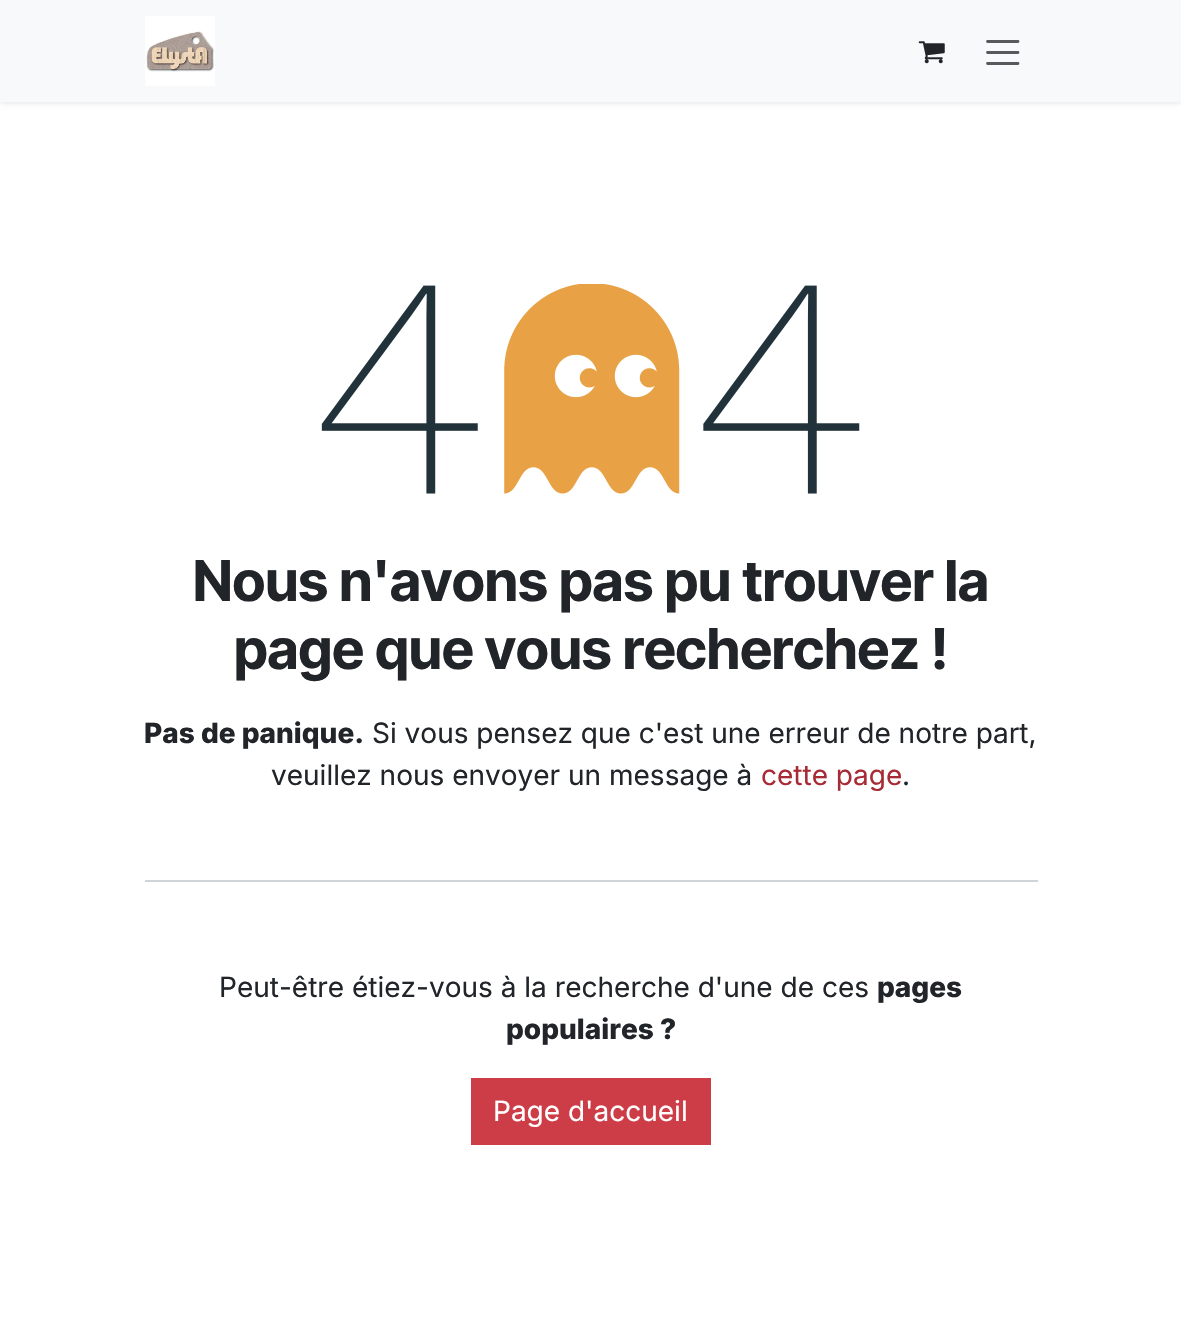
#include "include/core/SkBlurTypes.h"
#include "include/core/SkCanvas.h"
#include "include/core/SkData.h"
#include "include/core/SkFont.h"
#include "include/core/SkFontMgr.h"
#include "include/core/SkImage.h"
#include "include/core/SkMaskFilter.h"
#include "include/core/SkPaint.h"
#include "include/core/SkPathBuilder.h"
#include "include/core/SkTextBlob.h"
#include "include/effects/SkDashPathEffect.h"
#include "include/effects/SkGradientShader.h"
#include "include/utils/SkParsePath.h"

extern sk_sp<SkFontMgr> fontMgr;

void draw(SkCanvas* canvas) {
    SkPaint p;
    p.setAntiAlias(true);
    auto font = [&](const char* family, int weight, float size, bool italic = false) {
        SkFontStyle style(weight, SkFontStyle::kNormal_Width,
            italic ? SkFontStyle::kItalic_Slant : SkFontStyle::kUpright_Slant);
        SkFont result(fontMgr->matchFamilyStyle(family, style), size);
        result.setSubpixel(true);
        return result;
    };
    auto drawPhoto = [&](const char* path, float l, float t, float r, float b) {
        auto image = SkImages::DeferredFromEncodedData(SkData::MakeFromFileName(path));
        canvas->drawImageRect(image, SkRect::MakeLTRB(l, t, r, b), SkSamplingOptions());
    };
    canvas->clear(0xFFFFFFFF);
    p.setColor(0x1A000000);
    p.setMaskFilter(SkMaskFilter::MakeBlur(kNormal_SkBlurStyle, 2.5f));
    canvas->drawRect(SkRect::MakeLTRB(0, 2, 1181, 103), p);
    p.setMaskFilter(nullptr);
    p.setColor(0xFFF8F9FA);
    canvas->drawRect(SkRect::MakeLTRB(0, 0, 1181, 102), p);
    drawPhoto("media/1.png", 145, 16, 215, 86);
    drawPhoto("media/2.png", 918, 41, 945, 64);
    p.setStyle(SkPaint::kStroke_Style);
    p.setStrokeWidth(2.8f);
    p.setStrokeCap(SkPaint::kRound_Cap);
    p.setColor(0xFF575A5D);
    canvas->drawPath(SkPathBuilder().moveTo(987.5f, 41.5f).lineTo(1018, 41.5f).moveTo(987.5f, 52.5f).lineTo(1018, 52.5f).moveTo(987.5f, 63.5f).lineTo(1018, 63.5f).detach(), p);
    drawPhoto("media/3.png", 321, 284, 860, 494);
    auto font1 = font("Inter Tight", 700, 56.25f);
    p.setStyle(SkPaint::kFill_Style);
    p.setColor(0xFF212529);
    canvas->drawString("Nous n'avons pas pu trouver la", 193, 601, font1, p);
    canvas->drawString("page que vous recherchez !", 234, 669, font1, p);
    auto font2 = font("Inter", 800, 28);
    canvas->drawString("Pas de panique.", 144, 743, font2, p);
    auto font3 = font("Inter", 400, 28);
    canvas->drawString("Si vous pensez que c'est une erreur de notre part,", 372, 743, font3, p);
    canvas->drawString("veuillez nous envoyer un message à", 271, 785, font3, p);
    p.setColor(0xFFA72B34);
    canvas->drawString("cette page", 761, 785, font3, p);
    p.setColor(0xFF212529);
    canvas->drawString(".", 902, 785, font3, p);
    p.setColor(0xFFCED4DA);
    canvas->drawRect(SkRect::MakeLTRB(145, 880, 1038, 882), p);
    p.setColor(0xFF212529);
    canvas->drawString("Peut-être étiez-vous à la recherche d'une de ces", 219, 997, font3, p);
    canvas->drawString("pages", 877, 997, font2, p);
    canvas->drawString("populaires ?", 506, 1039, font2, p);
    p.setColor(0xFFCD3D48);
    canvas->drawRect(SkRect::MakeLTRB(471, 1078, 711, 1145), p);
    p.setColor(0xFFFFFFFF);
    canvas->drawString("Page d'accueil", 493, 1121, font3, p);
}
